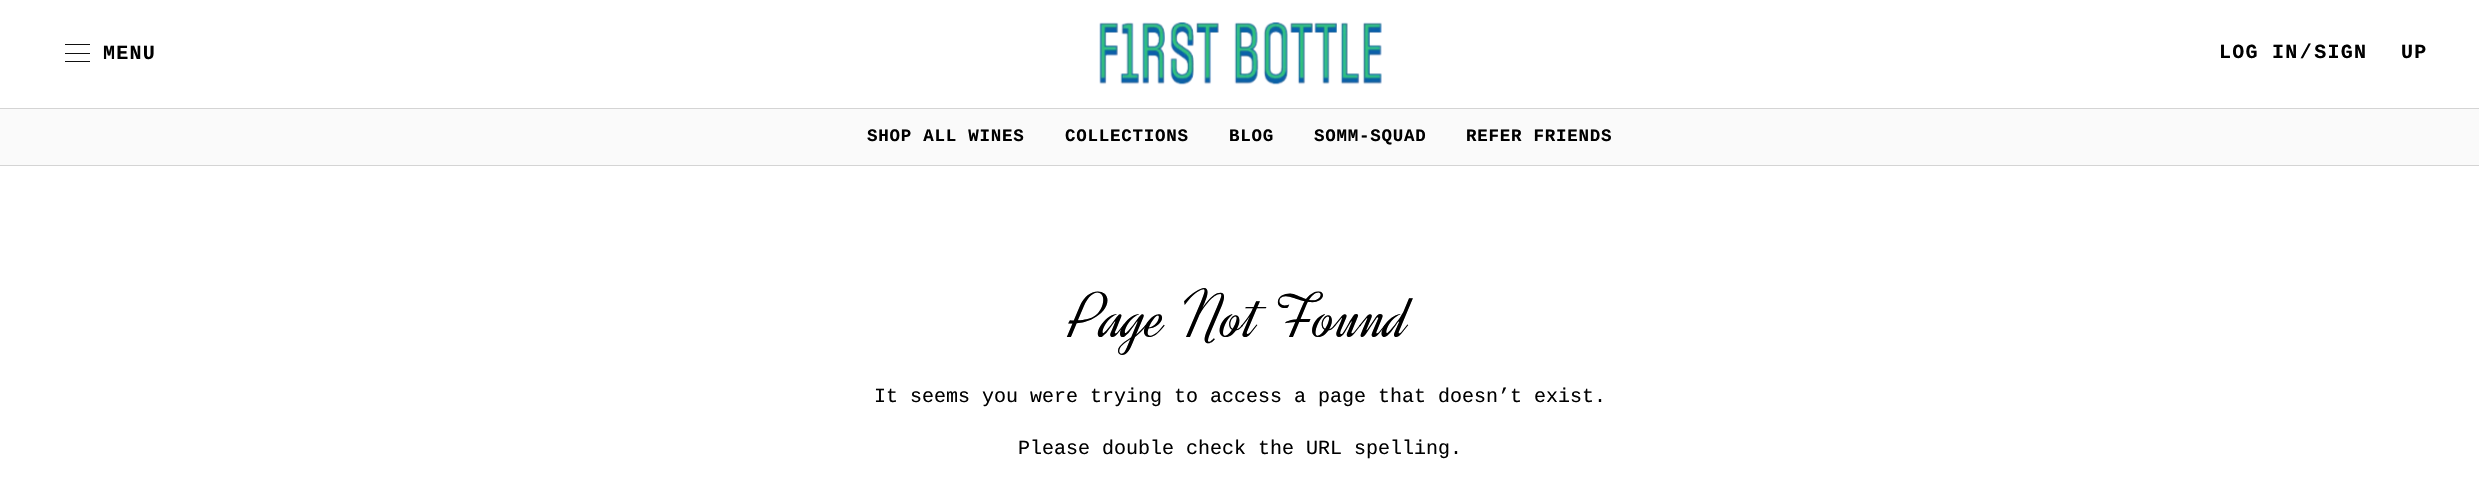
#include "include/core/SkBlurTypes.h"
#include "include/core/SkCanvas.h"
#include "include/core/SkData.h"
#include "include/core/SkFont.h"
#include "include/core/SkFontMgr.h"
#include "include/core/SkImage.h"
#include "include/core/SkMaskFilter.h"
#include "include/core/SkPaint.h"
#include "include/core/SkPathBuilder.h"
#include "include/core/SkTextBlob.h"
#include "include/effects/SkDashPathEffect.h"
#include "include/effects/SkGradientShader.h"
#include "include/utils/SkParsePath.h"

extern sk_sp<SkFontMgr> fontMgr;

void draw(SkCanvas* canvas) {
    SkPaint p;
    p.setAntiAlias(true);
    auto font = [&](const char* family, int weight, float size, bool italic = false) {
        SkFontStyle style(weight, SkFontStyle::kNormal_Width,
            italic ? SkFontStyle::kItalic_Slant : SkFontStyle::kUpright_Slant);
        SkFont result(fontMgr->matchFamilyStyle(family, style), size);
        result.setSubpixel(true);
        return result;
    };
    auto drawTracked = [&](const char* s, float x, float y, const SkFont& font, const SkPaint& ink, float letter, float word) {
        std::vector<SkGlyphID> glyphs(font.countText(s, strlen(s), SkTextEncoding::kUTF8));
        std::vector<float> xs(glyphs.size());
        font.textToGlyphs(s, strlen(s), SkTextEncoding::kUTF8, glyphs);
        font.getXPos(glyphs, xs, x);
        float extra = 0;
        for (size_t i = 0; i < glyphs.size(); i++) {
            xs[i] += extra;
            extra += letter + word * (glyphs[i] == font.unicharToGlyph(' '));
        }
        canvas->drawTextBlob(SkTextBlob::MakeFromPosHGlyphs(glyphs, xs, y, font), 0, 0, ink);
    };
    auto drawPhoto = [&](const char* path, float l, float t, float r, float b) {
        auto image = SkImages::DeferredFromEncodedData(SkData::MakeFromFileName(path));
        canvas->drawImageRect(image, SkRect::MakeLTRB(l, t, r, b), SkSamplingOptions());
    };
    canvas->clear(0xFFFFFFFF);
    {
        const struct { float l, t, r, b; SkColor color; } items[] = {
            {0, 165, 2479, 166, 0xFFD4D4D4},
            {0, 108, 2479, 109, 0xFFD4D4D4},
            {65, 44, 90, 45, 0xFF111111},
            {65, 53, 90, 54, 0xFF111111},
            {65, 61, 90, 62, 0xFF111111},
        };
        for (auto [l, t, r, b, color] : items) {
            p.setColor(color);
            canvas->drawRect(SkRect::MakeLTRB(l, t, r, b), p);
        }
    }
    auto font1 = font("Liberation Mono", 700, 20);
    p.setColor(0xFF000000);
    drawTracked("MENU", 103, 59, font1, p, 1.25f, 0);
    drawPhoto("media/1.png", 1099, 22, 1382, 85);
    drawTracked("LOG IN / SIGN", 2219, 58, font1, p, 1.25f, 0);
    drawTracked("UP", 2401, 58, font1, p, 1.25f, 0);
    p.setColor(0xFFFAFAFA);
    canvas->drawRect(SkRect::MakeLTRB(0, 109, 2479, 165), p);
    auto font2 = font("Liberation Mono", 700, 17.5f);
    p.setColor(0xFF000000);
    {
        const struct { const char* s; float x, y; } items[] = {
            {"SHOP ALL WINES", 867, 141},
            {"COLLECTIONS", 1065, 141},
            {"BLOG", 1229, 141},
            {"SOMM-SQUAD", 1314, 141},
            {"REFER FRIENDS", 1466, 141},
        };
        for (auto [s, x, y] : items) {
            drawTracked(s, x, y, font2, p, 0.75f, 0);
        }
    }
    auto font3 = font("Dynalight", 300, 65);
    canvas->drawString("Page Not Found", 1070, 337, font3, p);
    auto font4 = font("Liberation Mono", 400, 20);
    canvas->drawString("It seems you were trying to access a page that doesn’t exist.", 874, 402, font4, p);
    canvas->drawString("Please double check the URL spelling.", 1018, 454, font4, p);
}
